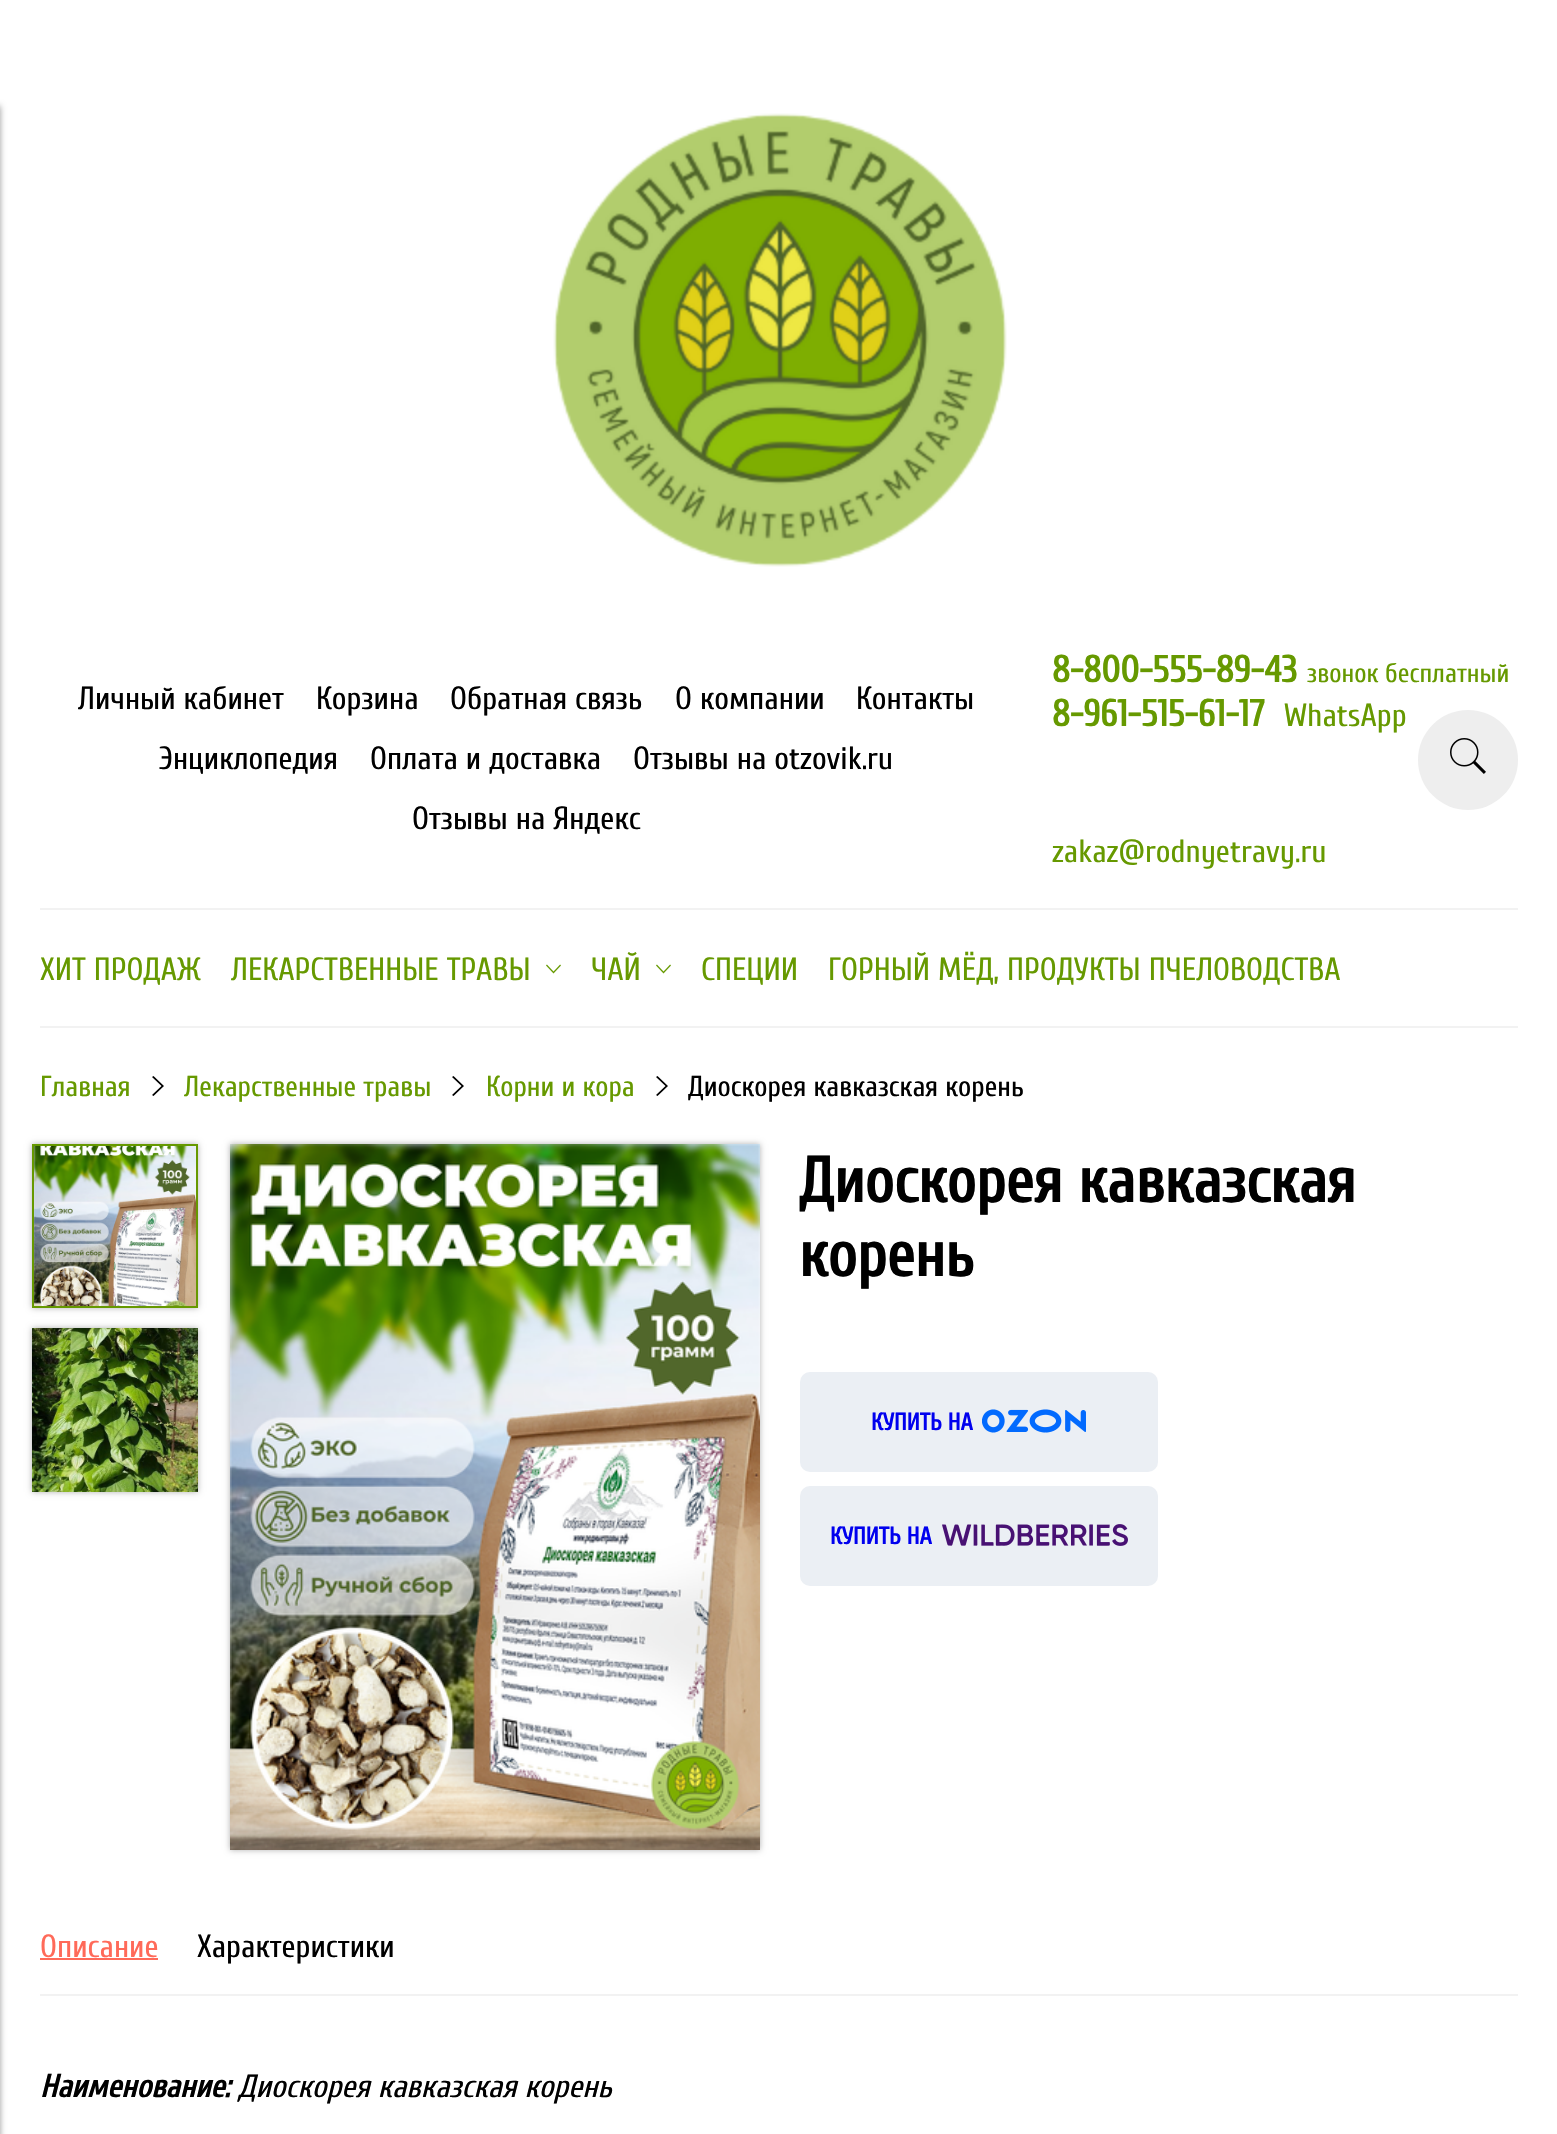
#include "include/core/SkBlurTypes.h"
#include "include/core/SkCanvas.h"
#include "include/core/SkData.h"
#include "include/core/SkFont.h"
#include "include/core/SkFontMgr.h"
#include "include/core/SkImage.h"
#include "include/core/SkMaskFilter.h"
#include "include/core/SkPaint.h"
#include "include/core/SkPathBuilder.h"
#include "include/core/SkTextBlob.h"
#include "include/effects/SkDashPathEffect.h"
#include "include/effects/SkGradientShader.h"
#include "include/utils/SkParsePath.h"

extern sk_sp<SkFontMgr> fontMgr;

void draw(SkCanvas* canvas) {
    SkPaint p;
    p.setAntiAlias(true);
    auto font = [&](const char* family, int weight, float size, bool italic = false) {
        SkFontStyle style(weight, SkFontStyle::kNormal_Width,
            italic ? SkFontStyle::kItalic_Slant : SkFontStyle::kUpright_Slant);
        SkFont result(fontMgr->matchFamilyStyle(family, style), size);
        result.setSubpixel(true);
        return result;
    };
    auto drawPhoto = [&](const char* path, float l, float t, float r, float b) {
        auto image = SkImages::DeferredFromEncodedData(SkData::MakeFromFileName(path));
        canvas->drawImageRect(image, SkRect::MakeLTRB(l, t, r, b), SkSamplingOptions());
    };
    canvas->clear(0xFFFFFFFF);
    p.setColor(0x66000000);
    p.setMaskFilter(SkMaskFilter::MakeBlur(kNormal_SkBlurStyle, 3));
    canvas->drawRect(SkRect::MakeLTRB(-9, 106, 0, 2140), p);
    p.setMaskFilter(nullptr);
    drawPhoto("media/1.png", 553, 113, 1007, 567);
    auto font1 = font("Cuprum", 400, 32);
    p.setColor(0xFF000000);
    {
        const struct { const char* s; float x, y; } items[] = {
            {"Личный кабинет", 78, 709},
            {"Корзина", 316, 709},
            {"Обратная связь", 450, 709},
            {"О компании", 675, 709},
            {"Контакты", 856, 709},
            {"Энциклопедия", 159, 769},
            {"Оплата и доставка", 370, 769},
            {"Отзывы на otzovik.ru", 633, 769},
            {"Отзывы на Яндекс", 412, 829},
        };
        for (auto [s, x, y] : items) {
            canvas->drawString(s, x, y, font1, p);
        }
    }
    auto font2 = font("Cuprum", 700, 37.25f);
    p.setColor(0xFF669900);
    canvas->drawString("8-800-555-89-43", 1052, 682, font2, p);
    auto font3 = font("Cuprum", 400, 26.75f);
    canvas->drawString("звонок бесплатный", 1307, 682, font3, p);
    canvas->drawString("8-961-515-61-17", 1052, 726, font2, p);
    canvas->drawString("WhatsApp", 1284, 726, font1, p);
    canvas->drawString("zakaz@rodnyetravy.ru", 1052, 862, font1, p);
    p.setColor(0xFFEEEEEE);
    canvas->drawCircle(1468, 760, 50, p);
    drawPhoto("media/2.png", 1450, 738, 1486, 774);
    p.setColor(0xFFF2F2F2);
    canvas->drawRect(SkRect::MakeLTRB(40, 908, 1518, 910), p);
    p.setColor(0xFF669900);
    canvas->drawString("ХИТ ПРОДАЖ", 40, 980, font1, p);
    canvas->drawString("ЛЕКАРСТВЕННЫЕ ТРАВЫ", 231, 980, font1, p);
    drawPhoto("media/3.png", 546, 964, 561, 974);
    canvas->drawString("ЧАЙ", 591, 980, font1, p);
    drawPhoto("media/3.png", 656, 964, 671, 974);
    canvas->drawString("СПЕЦИИ", 701, 980, font1, p);
    canvas->drawString("ГОРНЫЙ МЁД, ПРОДУКТЫ ПЧЕЛОВОДСТВА", 828, 980, font1, p);
    p.setColor(0xFFF2F2F2);
    canvas->drawRect(SkRect::MakeLTRB(40, 1026, 1518, 1028), p);
    auto font4 = font("Cuprum", 400, 28.75f);
    p.setColor(0xFF669900);
    canvas->drawString("Главная", 40, 1096, font4, p);
    p.setColor(0xFF000000);
    canvas->drawPath(SkPathBuilder().moveTo(152, 1077).lineTo(153.5f, 1076).lineTo(164, 1086).lineTo(153.5f, 1096).lineTo(152, 1095).lineTo(161.5f, 1086).close().detach(), p);
    p.setColor(0xFF669900);
    canvas->drawString("Лекарственные травы", 184, 1096, font4, p);
    p.setColor(0xFF000000);
    canvas->drawPath(SkPathBuilder().moveTo(452, 1077).lineTo(453.5f, 1076).lineTo(464, 1086).lineTo(453.5f, 1096).lineTo(452, 1095).lineTo(461.5f, 1086).close().detach(), p);
    p.setColor(0xFF669900);
    canvas->drawString("Корни и кора", 486, 1096, font4, p);
    p.setColor(0xFF000000);
    canvas->drawPath(SkPathBuilder().moveTo(656, 1077).lineTo(657.5f, 1076).lineTo(668, 1086).lineTo(657.5f, 1096).lineTo(656, 1095).lineTo(665.5f, 1086).close().detach(), p);
    canvas->drawString("Диоскорея кавказская корень", 688, 1096, font4, p);
    p.setColor(0x4D000000);
    p.setMaskFilter(SkMaskFilter::MakeBlur(kNormal_SkBlurStyle, 3));
    canvas->drawRect(SkRect::MakeLTRB(32, 1144, 198, 1308), p);
    p.setMaskFilter(nullptr);
    p.setStyle(SkPaint::kStroke_Style);
    p.setStrokeWidth(2);
    p.setColor(0xFF669900);
    canvas->drawRect(SkRect::MakeLTRB(33, 1145, 197, 1307), p);
    drawPhoto("media/4.png", 34, 1146, 196, 1306);
    p.setStyle(SkPaint::kFill_Style);
    p.setColor(0x4D000000);
    p.setMaskFilter(SkMaskFilter::MakeBlur(kNormal_SkBlurStyle, 3));
    canvas->drawRect(SkRect::MakeLTRB(32, 1328, 198, 1492), p);
    p.setMaskFilter(nullptr);
    drawPhoto("media/5.png", 32, 1328, 198, 1492);
    p.setMaskFilter(SkMaskFilter::MakeBlur(kNormal_SkBlurStyle, 3));
    canvas->drawRect(SkRect::MakeLTRB(230, 1144, 760, 1850), p);
    p.setMaskFilter(nullptr);
    drawPhoto("media/6.png", 230, 1144, 760, 1850);
    auto font5 = font("Cuprum", 700, 64);
    p.setColor(0xFF000000);
    canvas->drawString("Диоскорея кавказская", 799, 1202, font5, p);
    canvas->drawString("корень", 799, 1276, font5, p);
    p.setColor(0xFFEBEFF4);
    canvas->drawRoundRect(SkRect::MakeLTRB(800, 1372, 1158, 1472), 10, 10, p);
    auto font6 = font("Cuprum", 700, 24);
    p.setColor(0xFF0000EE);
    canvas->drawString("КУПИТЬ НА", 871, 1430, font6, p);
    drawPhoto("media/7.png", 982, 1409, 1086, 1433);
    p.setColor(0xFFEBEFF4);
    canvas->drawRoundRect(SkRect::MakeLTRB(800, 1486, 1158, 1586), 10, 10, p);
    p.setColor(0xFF0000EE);
    canvas->drawString("КУПИТЬ НА", 830, 1544, font6, p);
    drawPhoto("media/8.png", 942, 1524, 1128, 1546);
    p.setColor(0xFFF2F2F2);
    canvas->drawRect(SkRect::MakeLTRB(40, 1994, 1518, 1996), p);
    p.setColor(0xFFFF6A59);
    canvas->drawString("Описание", 40, 1957, font1, p);
    canvas->drawRect(SkRect::MakeLTRB(40, 1958, 158, 1960), p);
    p.setColor(0xFF000000);
    canvas->drawString("Характеристики", 197, 1957, font1, p);
    auto font7 = font("Cuprum", 700, 32, true);
    canvas->drawString("Наименование:", 40, 2097, font7, p);
    auto font8 = font("Cuprum", 400, 32, true);
    canvas->drawString("Диоскорея кавказская корень", 238, 2097, font8, p);
}
